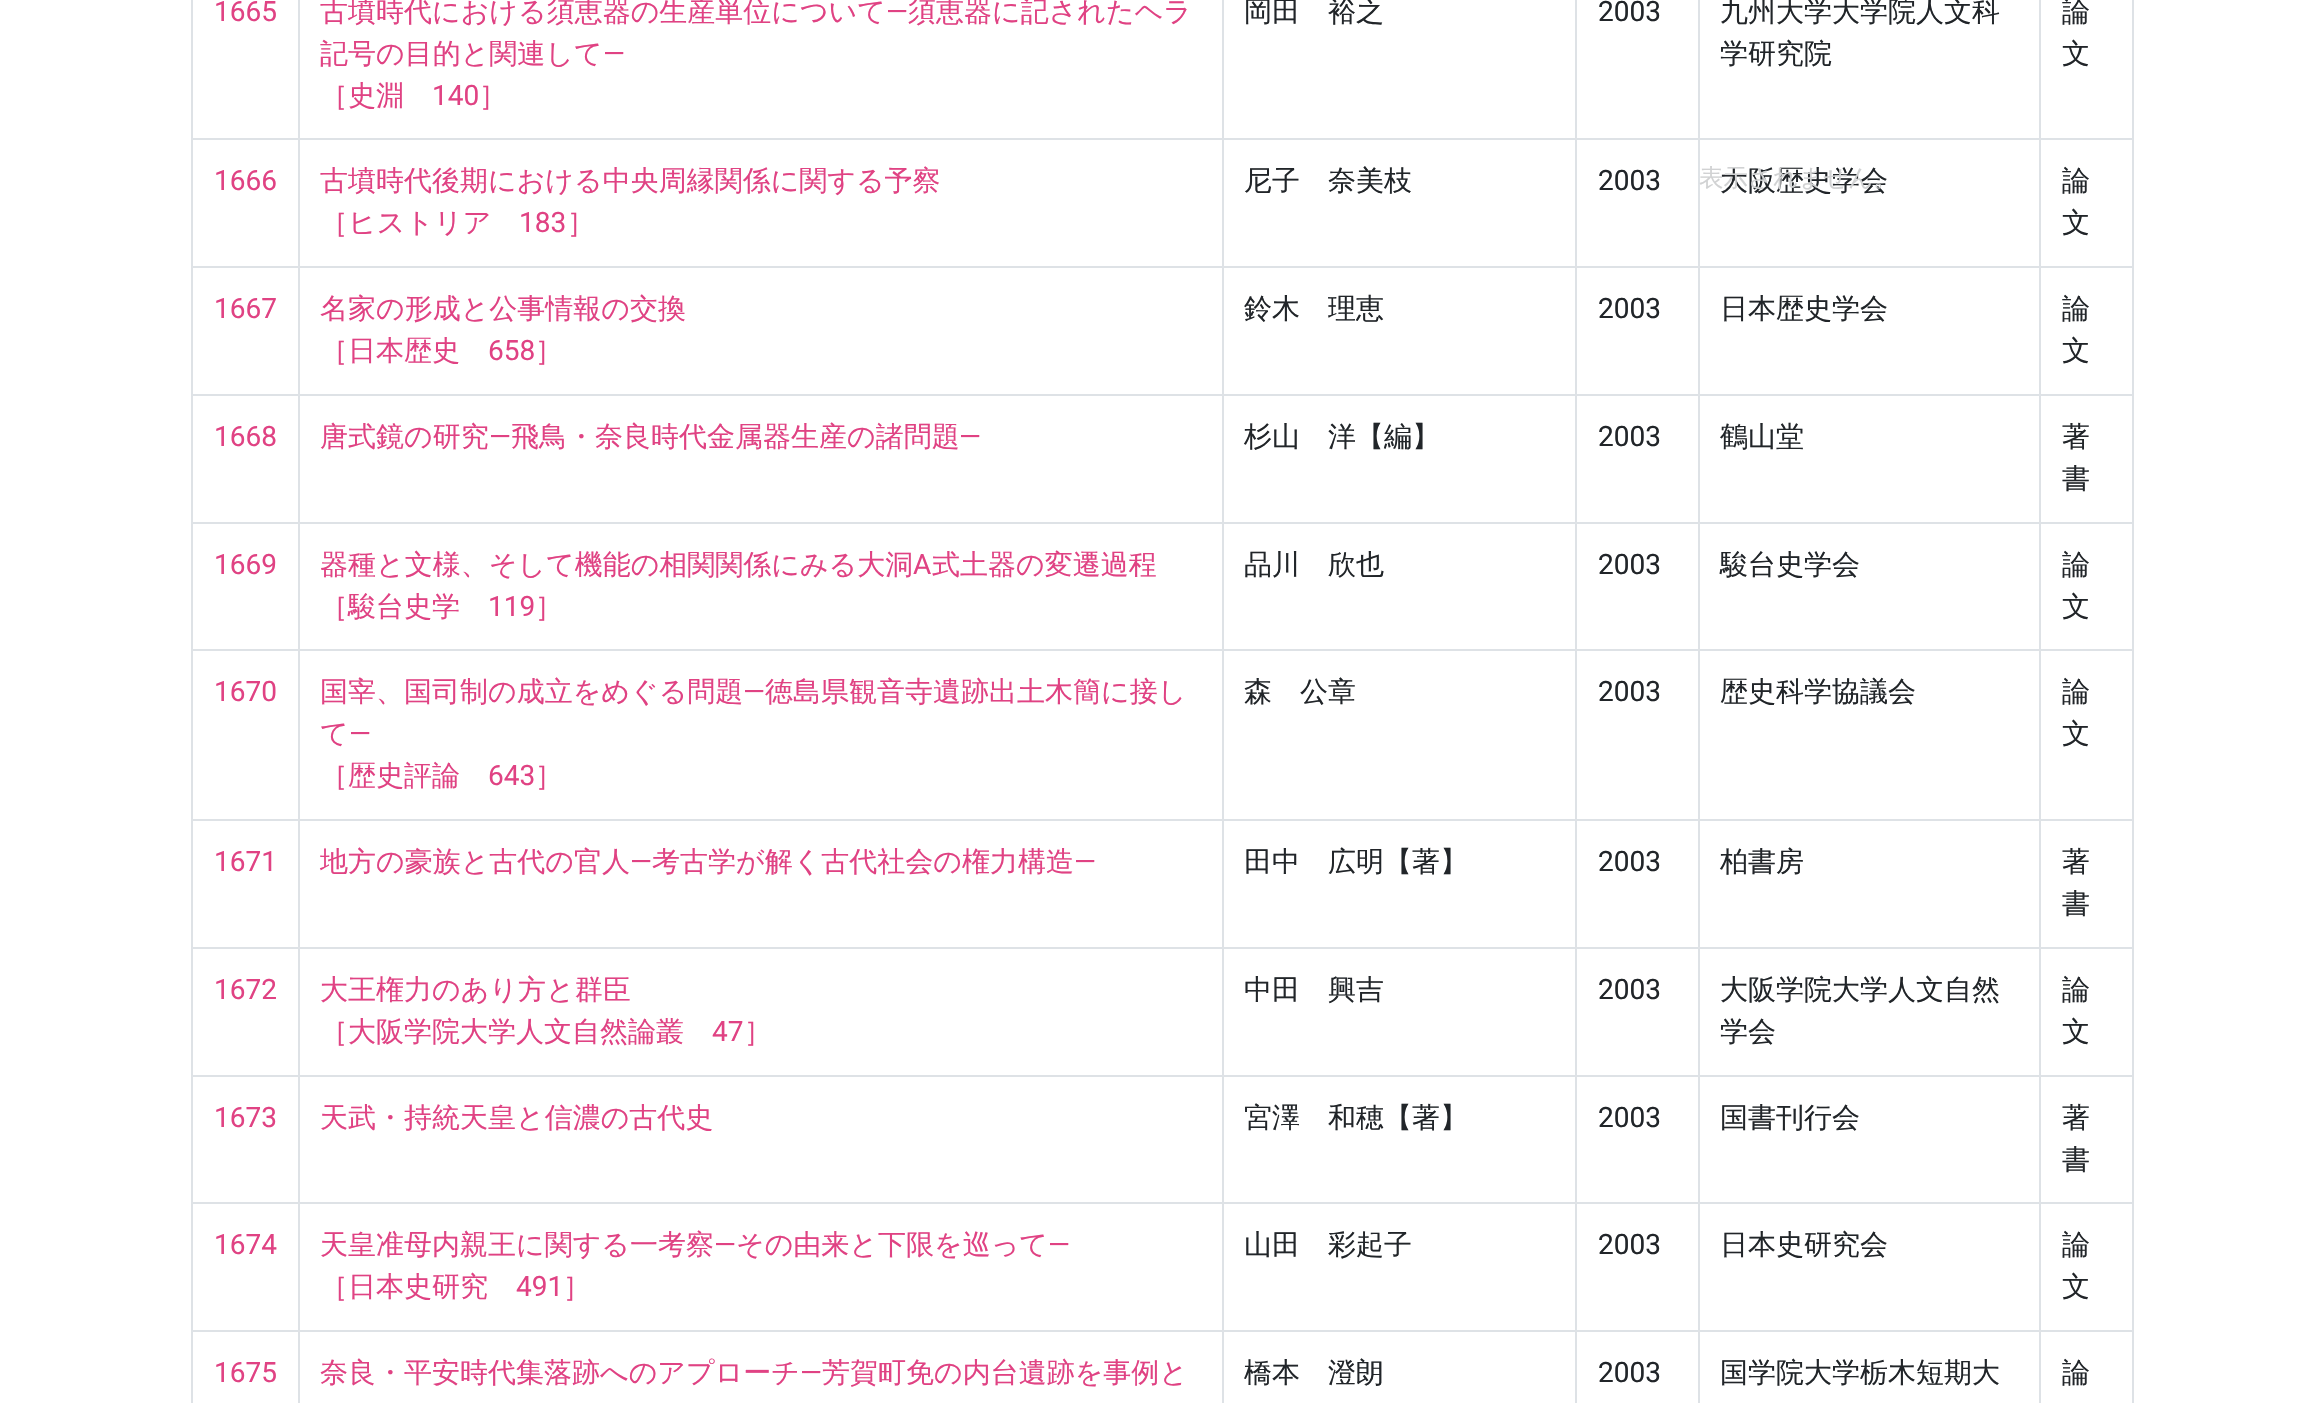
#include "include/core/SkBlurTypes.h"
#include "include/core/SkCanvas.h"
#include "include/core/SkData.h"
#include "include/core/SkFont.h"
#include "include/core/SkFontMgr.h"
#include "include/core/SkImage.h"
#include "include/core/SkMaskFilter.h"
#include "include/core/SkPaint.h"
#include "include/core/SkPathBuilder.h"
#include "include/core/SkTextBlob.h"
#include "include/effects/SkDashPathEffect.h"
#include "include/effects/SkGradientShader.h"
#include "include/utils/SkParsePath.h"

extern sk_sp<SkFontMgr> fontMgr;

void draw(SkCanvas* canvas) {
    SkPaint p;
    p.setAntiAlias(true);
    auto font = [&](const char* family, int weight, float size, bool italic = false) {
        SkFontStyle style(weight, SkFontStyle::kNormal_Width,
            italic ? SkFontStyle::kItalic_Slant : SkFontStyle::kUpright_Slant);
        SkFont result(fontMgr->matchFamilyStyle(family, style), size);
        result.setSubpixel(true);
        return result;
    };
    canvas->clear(0xFFFFFFFF);
    p.setColor(0xFFDEE2E6);
    canvas->drawRect(SkRect::MakeLTRB(2132, 0, 2134, 1403), p);
    canvas->drawRect(SkRect::MakeLTRB(191, 0, 193, 1403), p);
    auto font1 = font("Roboto", 400, 28);
    p.setColor(0xFFE04283);
    canvas->drawString("1665", 214, 21, font1, p);
    {
        const struct { float l, t, r, b; SkColor color; } items[] = {
            {2039, 138, 2133, 140, 0xFFDEE2E6},
            {2039, 266, 2133, 268, 0xFFDEE2E6},
            {2039, 394, 2133, 396, 0xFFDEE2E6},
            {2039, 522, 2133, 524, 0xFFDEE2E6},
            {2039, 649, 2133, 651, 0xFFDEE2E6},
            {2039, 819, 2133, 821, 0xFFDEE2E6},
            {2039, 947, 2133, 949, 0xFFDEE2E6},
            {2039, 1075, 2133, 1077, 0xFFDEE2E6},
            {2039, 1202, 2133, 1204, 0xFFDEE2E6},
            {2039, 1330, 2133, 1332, 0xFFDEE2E6},
            {2039, 1330, 2041, 1403, 0xFFDEE2E6},
            {1698, 1330, 2041, 1332, 0xFFDEE2E6},
            {2039, 1202, 2041, 1332, 0xFFDEE2E6},
            {1698, 1202, 2041, 1204, 0xFFDEE2E6},
            {2039, 1075, 2041, 1204, 0xFFDEE2E6},
            {1698, 1075, 2041, 1077, 0xFFDEE2E6},
            {2039, 947, 2041, 1076, 0xFFDEE2E6},
            {1698, 947, 2041, 949, 0xFFDEE2E6},
            {2039, 819, 2041, 949, 0xFFDEE2E6},
            {1698, 819, 2041, 821, 0xFFDEE2E6},
            {2039, 649, 2041, 821, 0xFFDEE2E6},
            {1698, 649, 2041, 651, 0xFFDEE2E6},
            {2039, 522, 2041, 651, 0xFFDEE2E6},
            {1698, 522, 2041, 524, 0xFFDEE2E6},
            {2039, 394, 2041, 523, 0xFFDEE2E6},
            {1698, 394, 2041, 396, 0xFFDEE2E6},
            {2039, 266, 2041, 396, 0xFFDEE2E6},
            {1698, 266, 2041, 268, 0xFFDEE2E6},
            {2039, 138, 2041, 268, 0xFFDEE2E6},
            {1698, 138, 2041, 140, 0xFFDEE2E6},
            {1698, 1330, 1700, 1403, 0xFFDEE2E6},
            {1575, 1330, 1699, 1332, 0xFFDEE2E6},
            {1698, 1202, 1700, 1332, 0xFFDEE2E6},
            {1575, 1202, 1699, 1204, 0xFFDEE2E6},
            {1698, 1075, 1700, 1204, 0xFFDEE2E6},
            {1575, 1075, 1699, 1077, 0xFFDEE2E6},
            {1698, 947, 1700, 1076, 0xFFDEE2E6},
            {1575, 947, 1699, 949, 0xFFDEE2E6},
            {1698, 819, 1700, 949, 0xFFDEE2E6},
            {1575, 819, 1699, 821, 0xFFDEE2E6},
            {1698, 649, 1700, 821, 0xFFDEE2E6},
            {1575, 649, 1699, 651, 0xFFDEE2E6},
            {1698, 522, 1700, 651, 0xFFDEE2E6},
            {1575, 522, 1699, 524, 0xFFDEE2E6},
            {1698, 394, 1700, 523, 0xFFDEE2E6},
            {1575, 394, 1699, 396, 0xFFDEE2E6},
            {1698, 266, 1700, 396, 0xFFDEE2E6},
            {1575, 266, 1699, 268, 0xFFDEE2E6},
            {1698, 138, 1700, 268, 0xFFDEE2E6},
            {1575, 138, 1699, 140, 0xFFDEE2E6},
            {1575, 1330, 1577, 1403, 0xFFDEE2E6},
            {1222, 1330, 1577, 1332, 0xFFDEE2E6},
            {1575, 1202, 1577, 1332, 0xFFDEE2E6},
            {1222, 1202, 1577, 1204, 0xFFDEE2E6},
            {1575, 1075, 1577, 1204, 0xFFDEE2E6},
            {1222, 1075, 1577, 1077, 0xFFDEE2E6},
            {1575, 947, 1577, 1076, 0xFFDEE2E6},
            {1222, 947, 1577, 949, 0xFFDEE2E6},
            {1575, 819, 1577, 949, 0xFFDEE2E6},
            {1222, 819, 1577, 821, 0xFFDEE2E6},
            {1575, 649, 1577, 821, 0xFFDEE2E6},
            {1222, 649, 1577, 651, 0xFFDEE2E6},
            {1575, 522, 1577, 651, 0xFFDEE2E6},
            {1222, 522, 1577, 524, 0xFFDEE2E6},
            {1575, 394, 1577, 523, 0xFFDEE2E6},
            {1222, 394, 1577, 396, 0xFFDEE2E6},
            {1575, 266, 1577, 396, 0xFFDEE2E6},
            {1222, 266, 1577, 268, 0xFFDEE2E6},
            {1575, 138, 1577, 268, 0xFFDEE2E6},
            {1222, 138, 1577, 140, 0xFFDEE2E6},
            {1222, 1330, 1224, 1403, 0xFFDEE2E6},
            {298, 1330, 1223, 1332, 0xFFDEE2E6},
            {1222, 1202, 1224, 1332, 0xFFDEE2E6},
            {298, 1202, 1223, 1204, 0xFFDEE2E6},
            {1222, 1075, 1224, 1204, 0xFFDEE2E6},
            {298, 1075, 1223, 1077, 0xFFDEE2E6},
            {1222, 947, 1224, 1076, 0xFFDEE2E6},
            {298, 947, 1223, 949, 0xFFDEE2E6},
            {1222, 819, 1224, 949, 0xFFDEE2E6},
            {298, 819, 1223, 821, 0xFFDEE2E6},
            {1222, 649, 1224, 821, 0xFFDEE2E6},
            {298, 649, 1223, 651, 0xFFDEE2E6},
            {1222, 522, 1224, 651, 0xFFDEE2E6},
            {298, 522, 1223, 524, 0xFFDEE2E6},
            {1222, 394, 1224, 523, 0xFFDEE2E6},
            {298, 394, 1223, 396, 0xFFDEE2E6},
            {1222, 266, 1224, 396, 0xFFDEE2E6},
            {298, 266, 1223, 268, 0xFFDEE2E6},
            {1222, 138, 1224, 268, 0xFFDEE2E6},
            {298, 138, 1223, 140, 0xFFDEE2E6},
            {298, 1330, 300, 1403, 0xFFDEE2E6},
            {191, 1330, 299, 1332, 0xFFDEE2E6},
            {298, 1202, 300, 1332, 0xFFDEE2E6},
            {191, 1202, 299, 1204, 0xFFDEE2E6},
            {298, 1075, 300, 1204, 0xFFDEE2E6},
            {191, 1075, 299, 1077, 0xFFDEE2E6},
            {298, 947, 300, 1076, 0xFFDEE2E6},
            {191, 947, 299, 949, 0xFFDEE2E6},
            {298, 819, 300, 949, 0xFFDEE2E6},
            {191, 819, 299, 821, 0xFFDEE2E6},
            {298, 649, 300, 821, 0xFFDEE2E6},
            {191, 649, 299, 651, 0xFFDEE2E6},
            {298, 522, 300, 651, 0xFFDEE2E6},
            {191, 522, 299, 524, 0xFFDEE2E6},
            {298, 394, 300, 523, 0xFFDEE2E6},
            {191, 394, 299, 396, 0xFFDEE2E6},
            {298, 266, 300, 396, 0xFFDEE2E6},
            {191, 266, 299, 268, 0xFFDEE2E6},
            {298, 138, 300, 268, 0xFFDEE2E6},
            {191, 138, 299, 140, 0xFFDEE2E6},
            {298, 0, 300, 140, 0xFFDEE2E6},
        };
        for (auto [l, t, r, b, color] : items) {
            p.setColor(color);
            canvas->drawRect(SkRect::MakeLTRB(l, t, r, b), p);
        }
    }
    auto font2 = font("WenQuanYi Zen Hei", 500, 28);
    p.setColor(0xFFE04283);
    canvas->drawString("古墳時代における須恵器の生産単位について", 320, 21, font2, p);
    canvas->drawString("―", 886, 21, font1, p);
    canvas->drawString("須恵器に記されたヘラ", 908, 21, font2, p);
    canvas->drawString("記号の目的と関連して", 320, 63, font2, p);
    canvas->drawString("―", 603, 63, font1, p);
    canvas->drawString("［史淵", 320, 105, font2, p);
    canvas->drawString("140", 432, 105, font1, p);
    canvas->drawString("］", 479, 105, font2, p);
    p.setColor(0xFFDEE2E6);
    canvas->drawRect(SkRect::MakeLTRB(1222, 0, 1224, 140), p);
    p.setColor(0xFF212529);
    canvas->drawString("岡田　裕之", 1244, 21, font2, p);
    p.setColor(0xFFDEE2E6);
    canvas->drawRect(SkRect::MakeLTRB(1575, 0, 1577, 140), p);
    p.setColor(0xFF212529);
    canvas->drawString("2003", 1598, 21, font1, p);
    p.setColor(0xFFDEE2E6);
    canvas->drawRect(SkRect::MakeLTRB(1698, 0, 1700, 140), p);
    p.setColor(0xFF212529);
    canvas->drawString("九州大学大学院人文科", 1720, 21, font2, p);
    canvas->drawString("学研究院", 1720, 63, font2, p);
    p.setColor(0xFFDEE2E6);
    canvas->drawRect(SkRect::MakeLTRB(2039, 0, 2041, 140), p);
    p.setColor(0xFF212529);
    canvas->drawString("論", 2062, 21, font2, p);
    canvas->drawString("文", 2062, 63, font2, p);
    p.setColor(0xFFE04283);
    canvas->drawString("1666", 214, 190, font1, p);
    canvas->drawString("古墳時代後期における中央周縁関係に関する予察", 320, 190, font2, p);
    canvas->drawString("［ヒストリア", 320, 232, font2, p);
    canvas->drawString("183", 519, 232, font1, p);
    canvas->drawString("］", 567, 232, font2, p);
    p.setColor(0xFF212529);
    canvas->drawString("尼子　奈美枝", 1244, 190, font2, p);
    canvas->drawString("2003", 1598, 190, font1, p);
    {
        const struct { const char* s; float x, y; } items[] = {
            {"大阪歴史学会", 1720, 190},
            {"論", 2062, 190},
            {"文", 2062, 232},
        };
        for (auto [s, x, y] : items) {
            canvas->drawString(s, x, y, font2, p);
        }
    }
    p.setColor(0xFFE04283);
    canvas->drawString("1667", 214, 318, font1, p);
    canvas->drawString("名家の形成と公事情報の交換", 320, 318, font2, p);
    canvas->drawString("［日本歴史", 320, 360, font2, p);
    canvas->drawString("658", 488, 360, font1, p);
    canvas->drawString("］", 535, 360, font2, p);
    p.setColor(0xFF212529);
    canvas->drawString("鈴木　理恵", 1244, 318, font2, p);
    canvas->drawString("2003", 1598, 318, font1, p);
    {
        const struct { const char* s; float x, y; } items[] = {
            {"日本歴史学会", 1720, 318},
            {"論", 2062, 318},
            {"文", 2062, 360},
        };
        for (auto [s, x, y] : items) {
            canvas->drawString(s, x, y, font2, p);
        }
    }
    p.setColor(0xFFE04283);
    canvas->drawString("1668", 214, 446, font1, p);
    canvas->drawString("唐式鏡の研究", 320, 446, font2, p);
    canvas->drawString("―", 489, 446, font1, p);
    canvas->drawString("飛鳥・奈良時代金属器生産の諸問題", 511, 446, font2, p);
    canvas->drawString("―", 959, 446, font1, p);
    p.setColor(0xFF212529);
    canvas->drawString("杉山　洋【編】", 1244, 446, font2, p);
    canvas->drawString("2003", 1598, 446, font1, p);
    {
        const struct { const char* s; float x, y; } items[] = {
            {"鶴山堂", 1720, 446},
            {"著", 2062, 446},
            {"書", 2062, 488},
        };
        for (auto [s, x, y] : items) {
            canvas->drawString(s, x, y, font2, p);
        }
    }
    p.setColor(0xFFE04283);
    canvas->drawString("1669", 214, 574, font1, p);
    canvas->drawString("器種と文様、そして機能の相関関係にみる大洞", 320, 574, font2, p);
    canvas->drawString("A", 913, 574, font1, p);
    canvas->drawString("式土器の変遷過程", 932, 574, font2, p);
    canvas->drawString("［駿台史学", 320, 616, font2, p);
    canvas->drawString("119", 488, 616, font1, p);
    canvas->drawString("］", 535, 616, font2, p);
    p.setColor(0xFF212529);
    canvas->drawString("品川　欣也", 1244, 574, font2, p);
    canvas->drawString("2003", 1598, 574, font1, p);
    {
        const struct { const char* s; float x, y; } items[] = {
            {"駿台史学会", 1720, 574},
            {"論", 2062, 574},
            {"文", 2062, 616},
        };
        for (auto [s, x, y] : items) {
            canvas->drawString(s, x, y, font2, p);
        }
    }
    p.setColor(0xFFE04283);
    canvas->drawString("1670", 214, 701, font1, p);
    canvas->drawString("国宰、国司制の成立をめぐる問題", 320, 701, font2, p);
    canvas->drawString("―", 743, 701, font1, p);
    canvas->drawString("徳島県観音寺遺跡出土木簡に接し", 765, 701, font2, p);
    canvas->drawString("て", 320, 743, font2, p);
    canvas->drawString("―", 349, 743, font1, p);
    canvas->drawString("［歴史評論", 320, 785, font2, p);
    canvas->drawString("643", 488, 785, font1, p);
    canvas->drawString("］", 535, 785, font2, p);
    p.setColor(0xFF212529);
    canvas->drawString("森　公章", 1244, 701, font2, p);
    canvas->drawString("2003", 1598, 701, font1, p);
    {
        const struct { const char* s; float x, y; } items[] = {
            {"歴史科学協議会", 1720, 701},
            {"論", 2062, 701},
            {"文", 2062, 743},
        };
        for (auto [s, x, y] : items) {
            canvas->drawString(s, x, y, font2, p);
        }
    }
    p.setColor(0xFFE04283);
    canvas->drawString("1671", 214, 871, font1, p);
    canvas->drawString("地方の豪族と古代の官人", 320, 871, font2, p);
    canvas->drawString("―", 630, 871, font1, p);
    canvas->drawString("考古学が解く古代社会の権力構造", 652, 871, font2, p);
    canvas->drawString("―", 1074, 871, font1, p);
    p.setColor(0xFF212529);
    canvas->drawString("田中　広明【著】", 1244, 871, font2, p);
    canvas->drawString("2003", 1598, 871, font1, p);
    {
        const struct { const char* s; float x, y; } items[] = {
            {"柏書房", 1720, 871},
            {"著", 2062, 871},
            {"書", 2062, 913},
        };
        for (auto [s, x, y] : items) {
            canvas->drawString(s, x, y, font2, p);
        }
    }
    p.setColor(0xFFE04283);
    canvas->drawString("1672", 214, 999, font1, p);
    canvas->drawString("大王権力のあり方と群臣", 320, 999, font2, p);
    canvas->drawString("［大阪学院大学人文自然論叢", 320, 1041, font2, p);
    canvas->drawString("47", 712, 1041, font1, p);
    canvas->drawString("］", 744, 1041, font2, p);
    p.setColor(0xFF212529);
    canvas->drawString("中田　興吉", 1244, 999, font2, p);
    canvas->drawString("2003", 1598, 999, font1, p);
    {
        const struct { const char* s; float x, y; } items[] = {
            {"大阪学院大学人文自然", 1720, 999},
            {"学会", 1720, 1041},
            {"論", 2062, 999},
            {"文", 2062, 1041},
        };
        for (auto [s, x, y] : items) {
            canvas->drawString(s, x, y, font2, p);
        }
    }
    p.setColor(0xFFE04283);
    canvas->drawString("1673", 214, 1127, font1, p);
    canvas->drawString("天武・持統天皇と信濃の古代史", 320, 1127, font2, p);
    p.setColor(0xFF212529);
    canvas->drawString("宮澤　和穂【著】", 1244, 1127, font2, p);
    canvas->drawString("2003", 1598, 1127, font1, p);
    {
        const struct { const char* s; float x, y; } items[] = {
            {"国書刊行会", 1720, 1127},
            {"著", 2062, 1127},
            {"書", 2062, 1169},
        };
        for (auto [s, x, y] : items) {
            canvas->drawString(s, x, y, font2, p);
        }
    }
    p.setColor(0xFFE04283);
    canvas->drawString("1674", 214, 1254, font1, p);
    canvas->drawString("天皇准母内親王に関する一考察", 320, 1254, font2, p);
    canvas->drawString("―", 714, 1254, font1, p);
    canvas->drawString("その由来と下限を巡って", 736, 1254, font2, p);
    canvas->drawString("―", 1048, 1254, font1, p);
    canvas->drawString("［日本史研究", 320, 1296, font2, p);
    canvas->drawString("491", 516, 1296, font1, p);
    canvas->drawString("］", 563, 1296, font2, p);
    p.setColor(0xFF212529);
    canvas->drawString("山田　彩起子", 1244, 1254, font2, p);
    canvas->drawString("2003", 1598, 1254, font1, p);
    {
        const struct { const char* s; float x, y; } items[] = {
            {"日本史研究会", 1720, 1254},
            {"論", 2062, 1254},
            {"文", 2062, 1296},
        };
        for (auto [s, x, y] : items) {
            canvas->drawString(s, x, y, font2, p);
        }
    }
    p.setColor(0xFFE04283);
    canvas->drawString("1675", 214, 1382, font1, p);
    canvas->drawString("奈良・平安時代集落跡へのアプローチ", 320, 1382, font2, p);
    canvas->drawString("―", 800, 1382, font1, p);
    canvas->drawString("芳賀町免の内台遺跡を事例と", 822, 1382, font2, p);
    p.setColor(0xFF212529);
    canvas->drawString("橋本　澄朗", 1244, 1382, font2, p);
    canvas->drawString("2003", 1598, 1382, font1, p);
    canvas->drawString("国学院大学栃木短期大", 1720, 1382, font2, p);
    canvas->drawString("論", 2062, 1382, font2, p);
    auto font3 = font("WenQuanYi Zen Hei", 500, 24.5f);
    p.setColor(0xFFD1D2D3);
    canvas->drawString("表示されません。", 1699, 186, font3, p);
}
